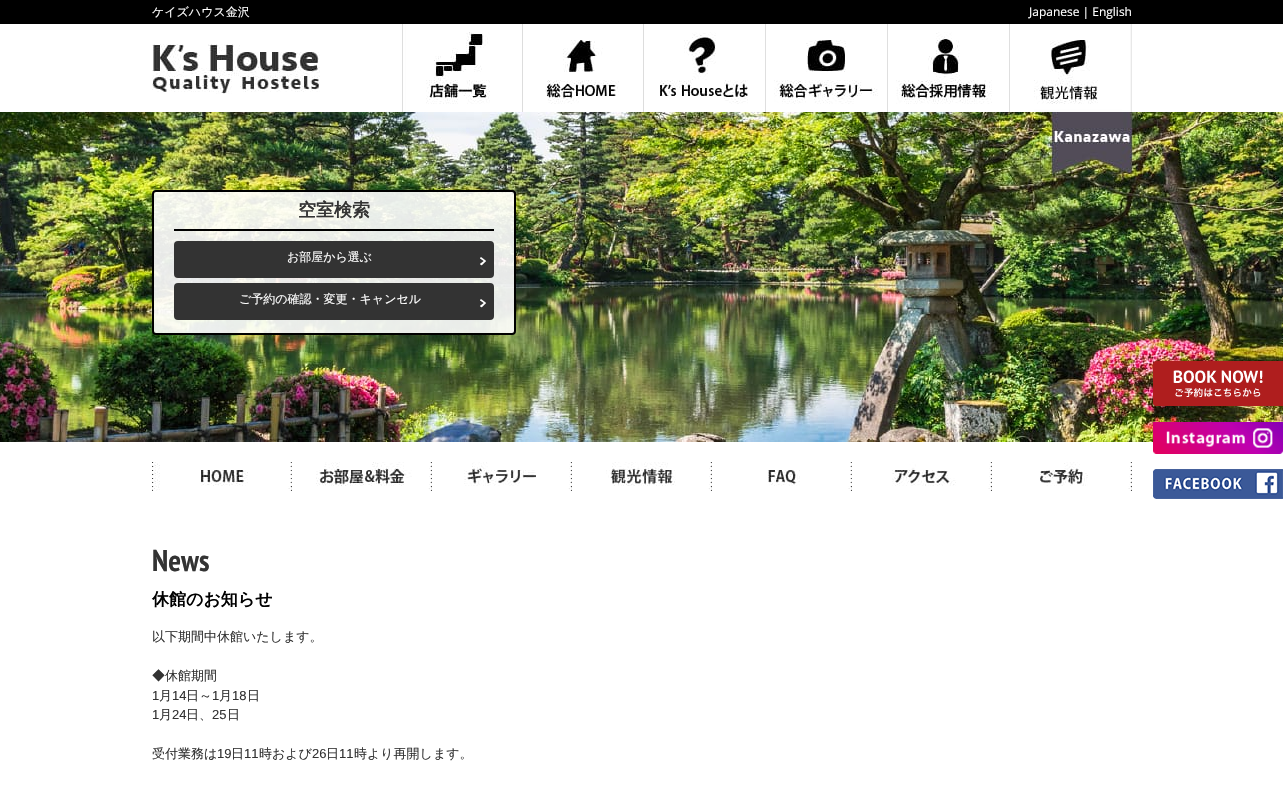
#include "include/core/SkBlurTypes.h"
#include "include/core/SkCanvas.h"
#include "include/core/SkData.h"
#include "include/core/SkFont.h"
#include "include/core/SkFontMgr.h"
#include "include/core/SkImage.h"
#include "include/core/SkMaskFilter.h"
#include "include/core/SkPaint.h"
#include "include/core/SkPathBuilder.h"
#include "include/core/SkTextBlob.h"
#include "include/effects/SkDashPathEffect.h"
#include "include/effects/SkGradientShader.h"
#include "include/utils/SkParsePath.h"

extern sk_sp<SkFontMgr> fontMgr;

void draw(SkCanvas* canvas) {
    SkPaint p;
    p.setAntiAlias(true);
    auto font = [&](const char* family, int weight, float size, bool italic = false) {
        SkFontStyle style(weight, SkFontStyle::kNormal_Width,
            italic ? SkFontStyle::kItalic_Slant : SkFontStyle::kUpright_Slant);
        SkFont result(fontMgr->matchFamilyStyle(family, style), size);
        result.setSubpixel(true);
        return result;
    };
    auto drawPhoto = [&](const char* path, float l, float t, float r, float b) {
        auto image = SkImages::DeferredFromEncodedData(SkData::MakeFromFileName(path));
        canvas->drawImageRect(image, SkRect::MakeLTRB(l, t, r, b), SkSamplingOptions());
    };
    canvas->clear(0xFFFFFFFF);
    p.setColor(0xFF000000);
    canvas->drawRect(SkRect::MakeLTRB(0, 0, 1283, 24), p);
    auto font1 = font("WenQuanYi Zen Hei", 500, 12);
    p.setColor(0xFFFFFFFF);
    canvas->drawString("ケイズハウス金沢", 152, 16, font1, p);
    auto font2 = font("Open Sans", 400, 12);
    canvas->drawString("Japanese | English", 1029, 16, font2, p);
    drawPhoto("media/1.png", 152, 44, 320, 94);
    drawPhoto("media/2.png", 402, 24, 523, 112);
    drawPhoto("media/3.png", 545, 24, 644, 112);
    drawPhoto("media/4.png", 660, 24, 766, 112);
    drawPhoto("media/5.png", 774, 24, 888, 112);
    drawPhoto("media/6.png", 896, 24, 1010, 112);
    drawPhoto("media/7.png", 1034, 24, 1132, 112);
    drawPhoto("media/8.png", 0, 112, 1283, 442);
    p.setColor(0xE6FFFFFF);
    canvas->drawRoundRect(SkRect::MakeLTRB(153, 191, 515, 334), 3, 3, p);
    p.setStyle(SkPaint::kStroke_Style);
    p.setStrokeWidth(2);
    p.setColor(0xFF000000);
    canvas->drawRoundRect(SkRect::MakeLTRB(153, 191, 515, 334), 3, 3, p);
    p.setStyle(SkPaint::kFill_Style);
    canvas->drawRect(SkRect::MakeLTRB(174, 229, 494, 231), p);
    auto font3 = font("WenQuanYi Zen Hei", 700, 18);
    p.setColor(0xFF333333);
    canvas->drawString("空室検索", 298, 216, font3, p);
    canvas->drawRoundRect(SkRect::MakeLTRB(174, 241, 494, 278), 4, 4, p);
    p.setColor(0xFFFFFFFF);
    canvas->drawString("お部屋から選ぶ", 287, 261, font1, p);
    drawPhoto("media/9.png", 480, 257, 486, 266);
    p.setColor(0xFF333333);
    canvas->drawRoundRect(SkRect::MakeLTRB(174, 283, 494, 320), 4, 4, p);
    p.setColor(0xFFFFFFFF);
    canvas->drawString("ご予約の確認・変更・キャンセル", 239, 303, font1, p);
    drawPhoto("media/9.png", 480, 299, 486, 308);
    drawPhoto("media/10.png", 152, 462, 292, 491);
    drawPhoto("media/11.png", 316, 462, 432, 491);
    drawPhoto("media/12.png", 464, 462, 572, 491);
    drawPhoto("media/13.png", 606, 462, 712, 491);
    drawPhoto("media/14.png", 768, 462, 852, 491);
    drawPhoto("media/15.png", 892, 462, 992, 491);
    drawPhoto("media/16.png", 1040, 462, 1132, 491);
    drawPhoto("media/17.png", 1153, 361, 1283, 406);
    drawPhoto("media/18.png", 1153, 422, 1283, 454);
    drawPhoto("media/19.png", 1153, 469, 1283, 499);
    auto font4 = font("PT Sans Narrow", 700, 30);
    p.setColor(0xFF333333);
    canvas->drawString("News", 152, 571, font4, p);
    auto font5 = font("WenQuanYi Zen Hei", 700, 17);
    p.setColor(0xFF000000);
    canvas->drawString("休館のお知らせ", 152, 605, font5, p);
    auto font6 = font("WenQuanYi Zen Hei", 500, 13);
    p.setColor(0xFF333333);
    canvas->drawString("以下期間中休館いたします。", 152, 641, font6, p);
    canvas->drawString("◆休館期間", 152, 680, font6, p);
    auto font7 = font("Liberation Sans", 400, 13);
    canvas->drawString("1", 152, 700, font7, p);
    canvas->drawString("月", 159, 700, font6, p);
    canvas->drawString("14", 172, 700, font7, p);
    canvas->drawString("日～", 186, 700, font6, p);
    canvas->drawString("1", 212, 700, font7, p);
    canvas->drawString("月", 219, 700, font6, p);
    canvas->drawString("18", 232, 700, font7, p);
    canvas->drawString("日", 247, 700, font6, p);
    canvas->drawString("1", 152, 719, font7, p);
    canvas->drawString("月", 159, 719, font6, p);
    canvas->drawString("24", 172, 719, font7, p);
    canvas->drawString("日、", 186, 719, font6, p);
    canvas->drawString("25", 212, 719, font7, p);
    canvas->drawString("日", 227, 719, font6, p);
    canvas->drawString("受付業務は", 152, 758, font6, p);
    canvas->drawString("19", 217, 758, font7, p);
    canvas->drawString("日", 231, 758, font6, p);
    canvas->drawString("11", 244, 758, font7, p);
    canvas->drawString("時および", 259, 758, font6, p);
    canvas->drawString("26", 312, 758, font7, p);
    canvas->drawString("日", 326, 758, font6, p);
    canvas->drawString("11", 339, 758, font7, p);
    canvas->drawString("時より再開します。", 354, 758, font6, p);
}
